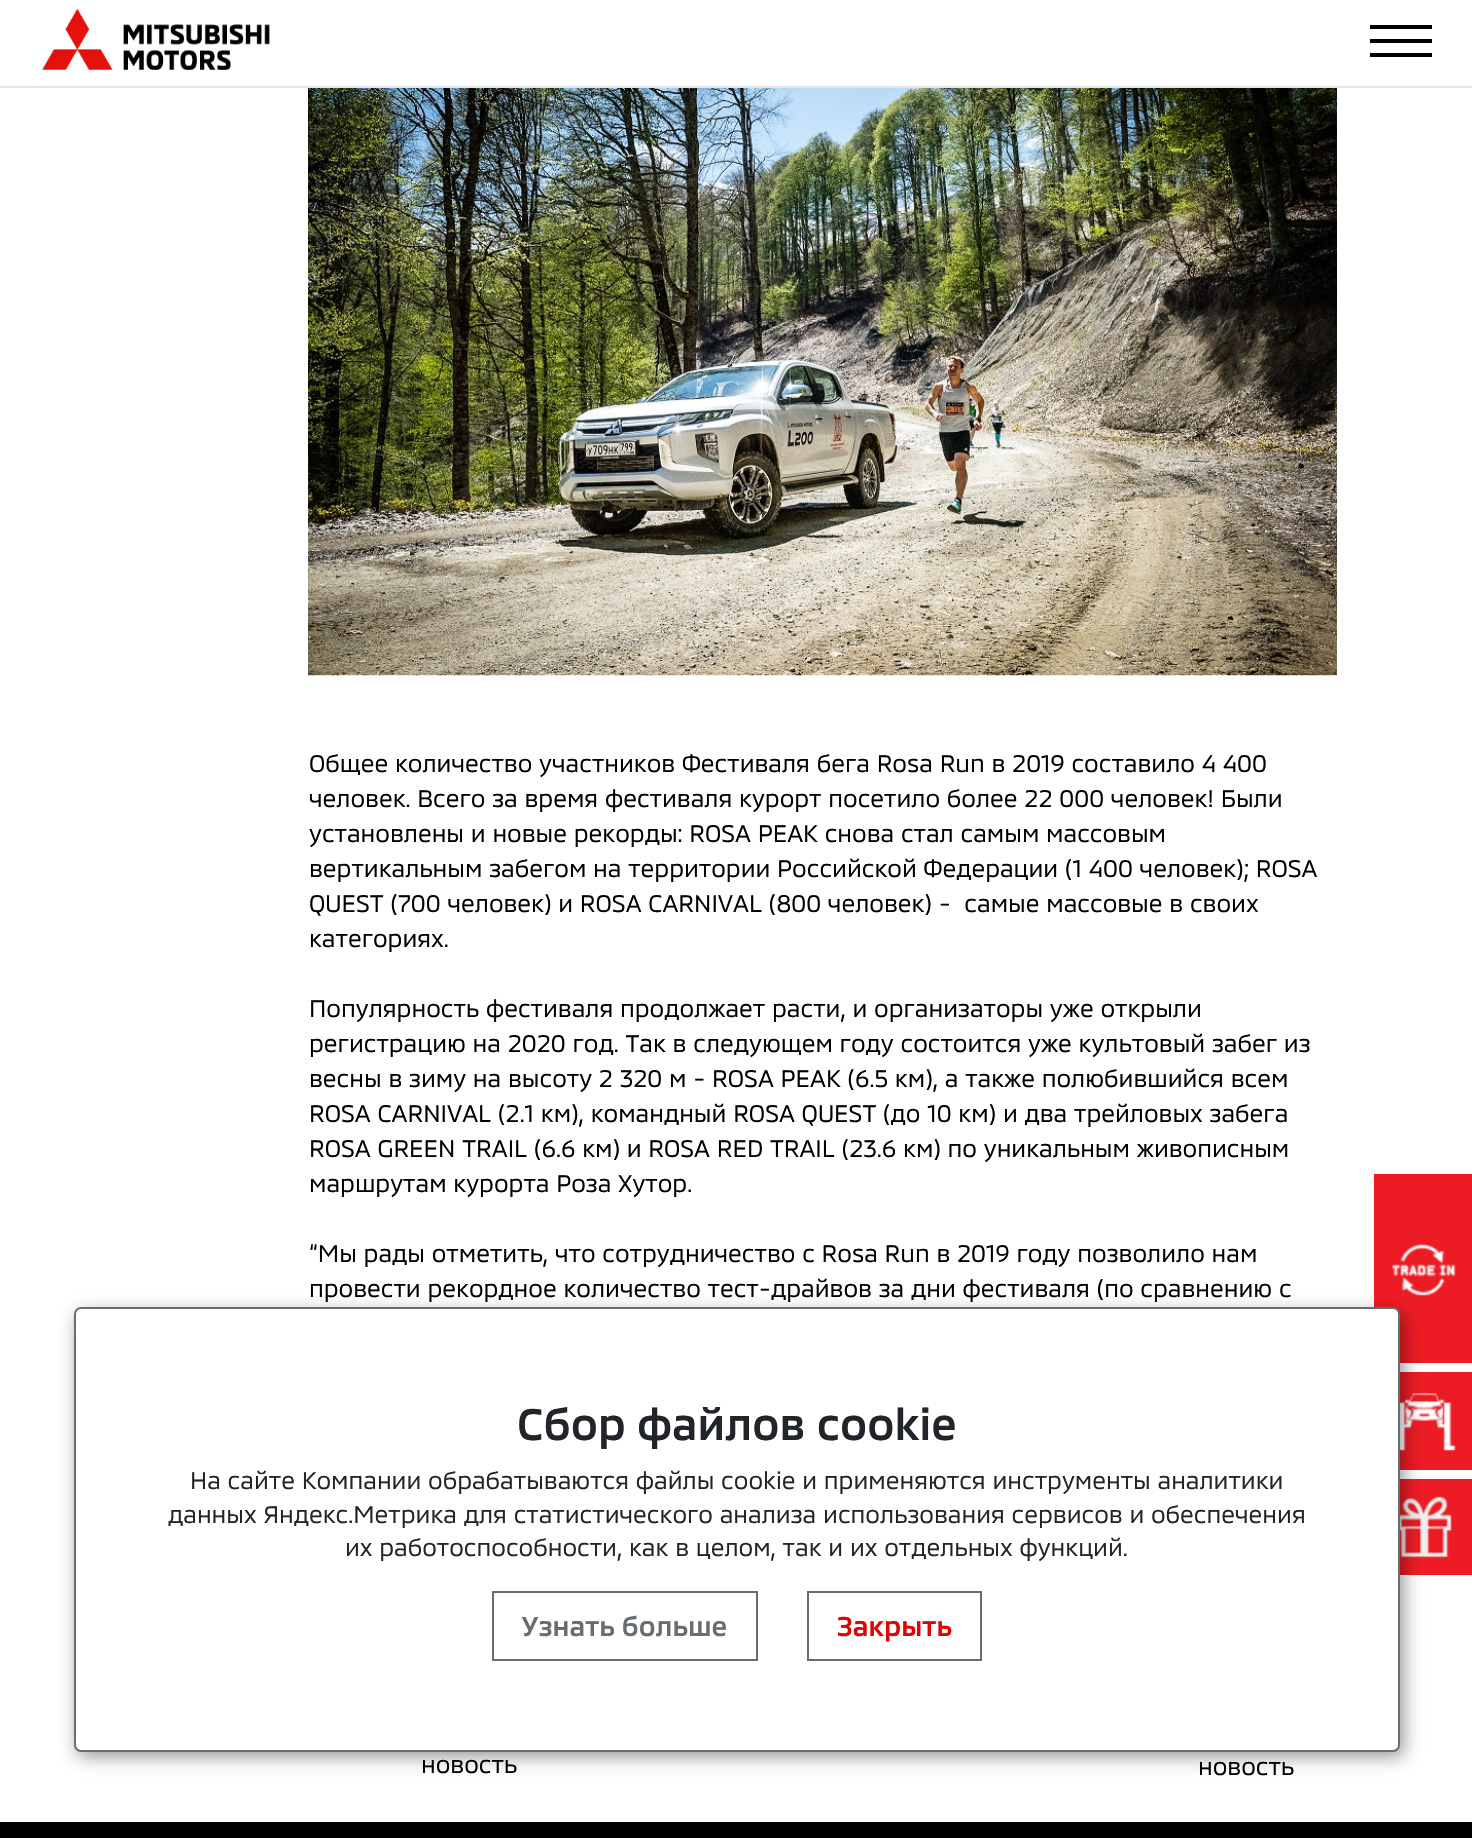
#include "include/core/SkBlurTypes.h"
#include "include/core/SkCanvas.h"
#include "include/core/SkData.h"
#include "include/core/SkFont.h"
#include "include/core/SkFontMgr.h"
#include "include/core/SkImage.h"
#include "include/core/SkMaskFilter.h"
#include "include/core/SkPaint.h"
#include "include/core/SkPathBuilder.h"
#include "include/core/SkTextBlob.h"
#include "include/effects/SkDashPathEffect.h"
#include "include/effects/SkGradientShader.h"
#include "include/utils/SkParsePath.h"

extern sk_sp<SkFontMgr> fontMgr;

void draw(SkCanvas* canvas) {
    SkPaint p;
    p.setAntiAlias(true);
    auto font = [&](const char* family, int weight, float size, bool italic = false) {
        SkFontStyle style(weight, SkFontStyle::kNormal_Width,
            italic ? SkFontStyle::kItalic_Slant : SkFontStyle::kUpright_Slant);
        SkFont result(fontMgr->matchFamilyStyle(family, style), size);
        result.setSubpixel(true);
        return result;
    };
    auto drawPhoto = [&](const char* path, float l, float t, float r, float b) {
        auto image = SkImages::DeferredFromEncodedData(SkData::MakeFromFileName(path));
        canvas->drawImageRect(image, SkRect::MakeLTRB(l, t, r, b), SkSamplingOptions());
    };
    canvas->clear(0xFFFFFFFF);
    p.setColor(0xFFE3E5E6);
    canvas->drawRect(SkRect::MakeLTRB(0, 86, 1472, 88), p);
    drawPhoto("media/1.png", 42, 8, 270, 70);
    {
        const struct { float l, t, r, b; SkColor color; } items[] = {
            {1370, 25, 1432, 29, 0xFF000000},
            {1370, 39, 1432, 43, 0xFF000000},
            {1370, 53, 1432, 57, 0xFF000000},
        };
        for (auto [l, t, r, b, color] : items) {
            p.setColor(color);
            canvas->drawRect(SkRect::MakeLTRB(l, t, r, b), p);
        }
    }
    drawPhoto("media/2.png", 308, 88, 1337, 676);
    auto font1 = font("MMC", 400, 24.5f);
    {
        const struct { const char* s; float x, y; } items[] = {
            {"Общее количество участников Фестиваля бега Rosa Run в 2019 составило 4 400", 309, 772},
            {"человек. Всего за время фестиваля курорт посетило более 22 000 человек! Были", 309, 807},
            {"установлены и новые рекорды: ROSA PEAK снова стал самым массовым", 309, 842},
            {"вертикальным забегом на территории Российской Федерации (1 400 человек); ROSA", 309, 877},
            {"QUEST (700 человек) и ROSA CARNIVAL (800 человек) -  самые массовые в своих", 309, 912},
            {"категориях.", 309, 947},
            {"Популярность фестиваля продолжает расти, и организаторы уже открыли", 309, 1017},
            {"регистрацию на 2020 год. Так в следующем году состоится уже культовый забег из", 309, 1052},
            {"весны в зиму на высоту 2 320 м - ROSA PEAK (6.5 км), а также полюбившийся всем", 309, 1087},
            {"ROSA CARNIVAL (2.1 км), командный ROSA QUEST (до 10 км) и два трейловых забега", 309, 1122},
            {"ROSA GREEN TRAIL (6.6 км) и ROSA RED TRAIL (23.6 км) по уникальным живописным", 309, 1157},
            {"маршрутам курорта Роза Хутор.", 309, 1192},
            {"“Мы рады отметить, что сотрудничество с Rosa Run в 2019 году позволило нам", 309, 1262},
            {"провести рекордное количество тест-драйвов за дни фестиваля (по сравнению с", 309, 1297},
            {"новость", 421, 1773},
            {"новость", 1198, 1775},
        };
        for (auto [s, x, y] : items) {
            canvas->drawString(s, x, y, font1, p);
        }
    }
    p.setColor(0xFFED1C24);
    canvas->drawRect(SkRect::MakeLTRB(1374, 1174, 1472, 1363), p);
    drawPhoto("media/3.png", 1392, 1244, 1456, 1296);
    canvas->drawRect(SkRect::MakeLTRB(1400, 1372, 1472, 1470), p);
    drawPhoto("media/4.png", 1400, 1393, 1456, 1451);
    canvas->drawRect(SkRect::MakeLTRB(1400, 1479, 1472, 1575), p);
    drawPhoto("media/5.png", 1400, 1496, 1452, 1558);
    p.setColor(0x66000000);
    p.setMaskFilter(SkMaskFilter::MakeBlur(kNormal_SkBlurStyle, 9));
    canvas->drawRoundRect(SkRect::MakeLTRB(77, 1313, 1404, 1757), 7, 7, p);
    p.setMaskFilter(nullptr);
    p.setColor(0xFFFFFFFF);
    canvas->drawRoundRect(SkRect::MakeLTRB(75, 1308, 1399, 1751), 6, 6, p);
    p.setStyle(SkPaint::kStroke_Style);
    p.setStrokeWidth(2);
    p.setColor(0xFF686D71);
    canvas->drawRoundRect(SkRect::MakeLTRB(75, 1308, 1399, 1751), 6, 6, p);
    auto font2 = font("MMC", 500, 45.25f);
    p.setStyle(SkPaint::kFill_Style);
    p.setColor(0xFF212529);
    canvas->drawString("Сбор файлов cookie", 517, 1440, font2, p);
    {
        const struct { const char* s; float x, y; } items[] = {
            {"На сайте Компании обрабатываются файлы cookie и применяются инструменты аналитики", 190, 1489},
            {"данных Яндекс.Метрика для статистического анализа использования сервисов и обеспечения", 168, 1523},
            {"их работоспособности, как в целом, так и их отдельных функций.", 345, 1556},
        };
        for (auto [s, x, y] : items) {
            canvas->drawString(s, x, y, font1, p);
        }
    }
    p.setStyle(SkPaint::kStroke_Style);
    p.setColor(0xFF686D71);
    canvas->drawRect(SkRect::MakeLTRB(493, 1592, 757, 1660), p);
    auto font3 = font("MMC", 500, 28);
    p.setStyle(SkPaint::kFill_Style);
    canvas->drawString("Узнать больше", 521, 1636, font3, p);
    p.setStyle(SkPaint::kStroke_Style);
    canvas->drawRect(SkRect::MakeLTRB(808, 1592, 981, 1660), p);
    p.setStyle(SkPaint::kFill_Style);
    p.setColor(0xFFE30000);
    canvas->drawString("Закрыть", 837, 1636, font3, p);
    p.setColor(0xFF000000);
    canvas->drawRect(SkRect::MakeLTRB(0, 1822, 1472, 1838), p);
}
